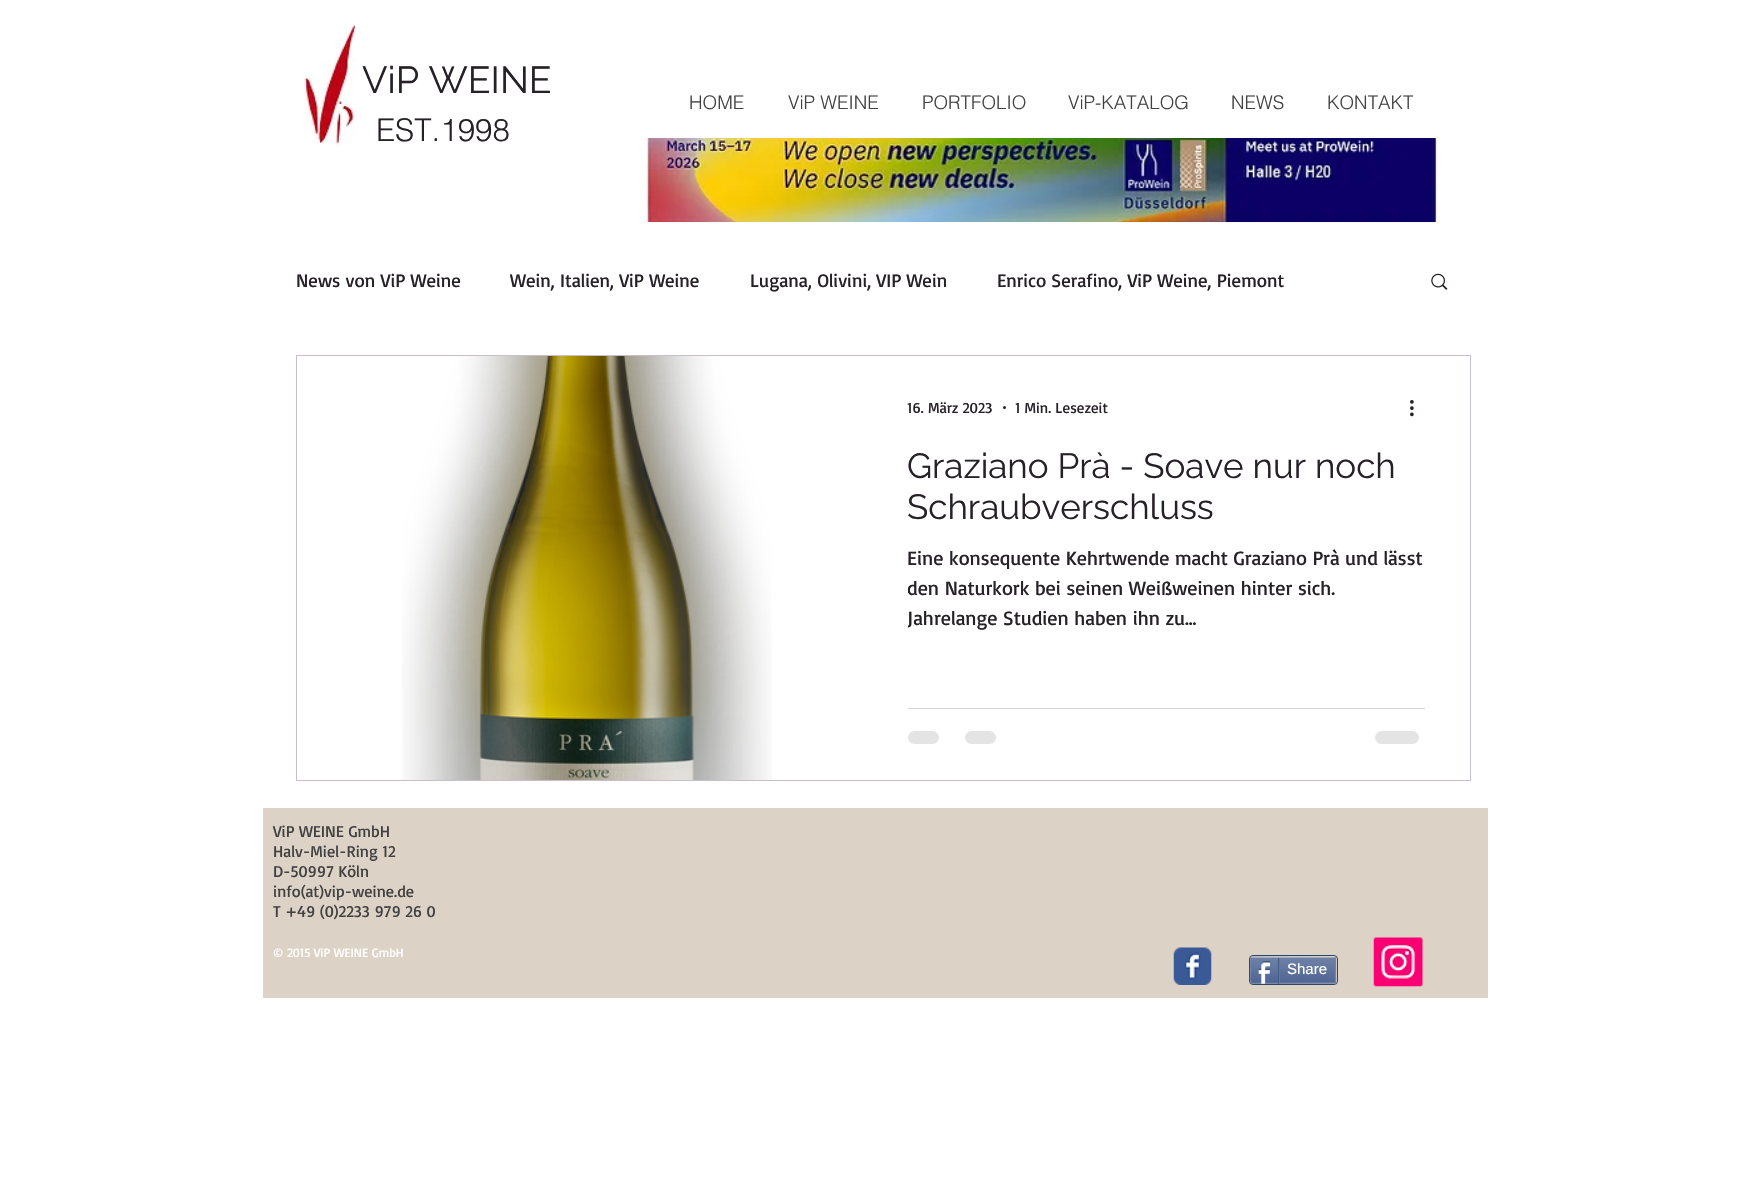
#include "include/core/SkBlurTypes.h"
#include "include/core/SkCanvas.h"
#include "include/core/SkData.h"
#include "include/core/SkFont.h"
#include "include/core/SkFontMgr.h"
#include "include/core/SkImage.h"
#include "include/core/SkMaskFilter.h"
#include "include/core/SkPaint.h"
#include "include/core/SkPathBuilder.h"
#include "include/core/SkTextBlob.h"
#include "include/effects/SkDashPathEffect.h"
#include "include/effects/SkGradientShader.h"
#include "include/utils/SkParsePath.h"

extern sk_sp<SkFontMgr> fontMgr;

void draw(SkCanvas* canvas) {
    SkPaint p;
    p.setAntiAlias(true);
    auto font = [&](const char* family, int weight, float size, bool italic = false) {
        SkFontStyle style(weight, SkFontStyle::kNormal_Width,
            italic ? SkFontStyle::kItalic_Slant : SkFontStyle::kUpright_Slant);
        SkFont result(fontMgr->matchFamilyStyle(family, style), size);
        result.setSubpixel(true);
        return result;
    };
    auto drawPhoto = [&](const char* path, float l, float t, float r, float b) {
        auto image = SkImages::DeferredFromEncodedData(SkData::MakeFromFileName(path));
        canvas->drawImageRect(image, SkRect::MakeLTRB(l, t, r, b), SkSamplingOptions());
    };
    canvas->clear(0xFFFFFFFF);
    drawPhoto("media/1.png", 304, 21, 356, 147);
    auto font1 = font("Raleway", 400, 37.5f);
    p.setColor(0xFF262027);
    canvas->drawString("ViP WEINE", 362, 93, font1, p);
    auto font2 = font("helvetica", 300, 18.75f);
    p.setColor(0xFF414141);
    {
        const struct { const char* s; float x, y; } items[] = {
            {"HOME", 689, 109},
            {"ViP WEINE", 788, 109},
            {"PORTFOLIO", 922, 109},
            {"ViP-KATALOG", 1068, 109},
            {"NEWS", 1231, 109},
            {"KONTAKT", 1327, 109},
        };
        for (auto [s, x, y] : items) {
            canvas->drawString(s, x, y, font2, p);
        }
    }
    auto font3 = font("helvetica", 300, 31.25f);
    p.setColor(0xFF262027);
    canvas->drawString("EST.1998", 376, 141, font3, p);
    drawPhoto("media/2.png", 643, 138, 1437, 223);
    auto font4 = font("Basic", 400, 18.75f);
    {
        const struct { const char* s; float x, y; } items[] = {
            {"News von ViP Weine", 296, 287},
            {"Wein, Italien, ViP Weine", 510, 287},
            {"Lugana, Olivini, VIP Wein", 750, 287},
            {"Enrico Serafino, ViP Weine, Piemont", 997, 287},
        };
        for (auto [s, x, y] : items) {
            canvas->drawString(s, x, y, font4, p);
        }
    }
    drawPhoto("media/3.png", 1431, 273, 1448, 290);
    p.setStyle(SkPaint::kStroke_Style);
    p.setStrokeWidth(1);
    p.setColor(0xFFCABDCD);
    canvas->drawRect(SkRect::MakeLTRB(296.5f, 355.5f, 1470.5f, 780.5f), p);
    drawPhoto("media/4.png", 402, 356, 772, 780);
    drawPhoto("media/5.png", 479, 356, 694, 780);
    auto font5 = font("Basic", 400, 15);
    p.setStyle(SkPaint::kFill_Style);
    p.setColor(0xFF262027);
    canvas->drawString("16. März 2023", 907, 413, font5, p);
    canvas->drawCircle(1004.5f, 407.5f, 1.5f, p);
    canvas->drawString("1 Min. Lesezeit", 1015, 413, font5, p);
    drawPhoto("media/6.png", 1410, 400, 1414, 417);
    auto font6 = font("Raleway", 400, 35);
    canvas->drawString("Graziano Prà - Soave nur noch", 907, 478, font6, p);
    canvas->drawString("Schraubverschluss", 907, 519, font6, p);
    auto font7 = font("Basic", 400, 20);
    canvas->drawString("Eine konsequente Kehrtwende macht Graziano Prà und lässt", 907, 565, font7, p);
    canvas->save();
    canvas->clipRect(SkRect::MakeLTRB(908, 543, 1425, 633));
    canvas->drawString("den Naturkork bei seinen Weißweinen hinter sich.", 907, 595, font7, p);
    canvas->drawString("Jahrelange Studien haben ihn zu...", 907, 625, font7, p);
    canvas->restore();
    p.setColor(0xFFD4D2D4);
    canvas->drawRect(SkRect::MakeLTRB(908, 708, 1425, 709), p);
    p.setColor(0xFFE5E4E5);
    canvas->drawRoundRect(SkRect::MakeLTRB(908, 731, 939, 744), 6.5f, 6.5f, p);
    canvas->drawRoundRect(SkRect::MakeLTRB(965, 731, 996, 744), 6.5f, 6.5f, p);
    canvas->drawRoundRect(SkRect::MakeLTRB(1375, 731, 1419, 744), 6.5f, 6.5f, p);
    p.setColor(0xFFDDD2C6);
    canvas->drawRect(SkRect::MakeLTRB(263, 808, 1488, 998), p);
    auto font8 = font("Basic", 400, 16.25f);
    p.setColor(0xFF414141);
    {
        const struct { const char* s; float x, y; } items[] = {
            {"ViP WEINE GmbH", 273, 837},
            {"Halv-Miel-Ring 12", 273, 857},
            {"D-50997 Köln", 273, 877},
            {"info(at)vip-weine.de", 273, 897},
            {"T +49 (0)2233 979 26 0", 273, 917},
        };
        for (auto [s, x, y] : items) {
            canvas->drawString(s, x, y, font8, p);
        }
    }
    auto font9 = font("Basic", 400, 12.5f);
    p.setColor(0xFFFFFFFF);
    canvas->drawString("© 2015 ViP WEINE GmbH", 273, 957, font9, p);
    drawPhoto("media/7.png", 1173, 947, 1212, 985);
    drawPhoto("media/8.png", 1373, 937, 1423, 987);
    p.setStyle(SkPaint::kStroke_Style);
    p.setColor(0xFF2D4565);
    canvas->drawRoundRect(SkRect::MakeLTRB(1249.5f, 955.5f, 1337.5f, 984.5f), 3.5f, 3.5f, p);
    drawPhoto("media/9.png", 1250, 957, 1337, 984);
    p.setStrokeWidth(1.2f);
    p.setColor(0xFF9AABC6);
    canvas->drawPath(SkPathBuilder().moveTo(1251, 957.5f).lineTo(1252.5f, 957).lineTo(1335, 957.5f).detach(), p);
    p.setColor(0xFF6F83AD);
    canvas->drawPath(SkPathBuilder().moveTo(1335, 957.5f).lineTo(1335.5f, 959).lineTo(1335.5f, 981).lineTo(1335, 982.5f).detach(), p);
    p.setColor(0xFF6176A3);
    canvas->drawPath(SkPathBuilder().moveTo(1335, 982.5f).lineTo(1266, 983).lineTo(1252.5f, 983).lineTo(1251, 982.5f).detach(), p);
    p.setColor(0xFF6F83AD);
    canvas->drawPath(SkPathBuilder().moveTo(1251, 982.5f).lineTo(1250.5f, 981).lineTo(1250.5f, 959).lineTo(1251, 957.5f).detach(), p);
    drawPhoto("media/10.png", 1257, 961, 1270, 984);
    p.setStyle(SkPaint::kFill_Style);
    p.setColor(0xFF425E85);
    canvas->drawRect(SkRect::MakeLTRB(1278, 958, 1279, 984), p);
    auto font10 = font("Liberation Sans", 400, 15);
    p.setColor(0xFFFFFFFF);
    canvas->drawString("Share", 1287, 974, font10, p);
    p.setColor(0xFF6176A3);
    canvas->drawRect(SkRect::MakeLTRB(1279, 958, 1280, 983), p);
}
